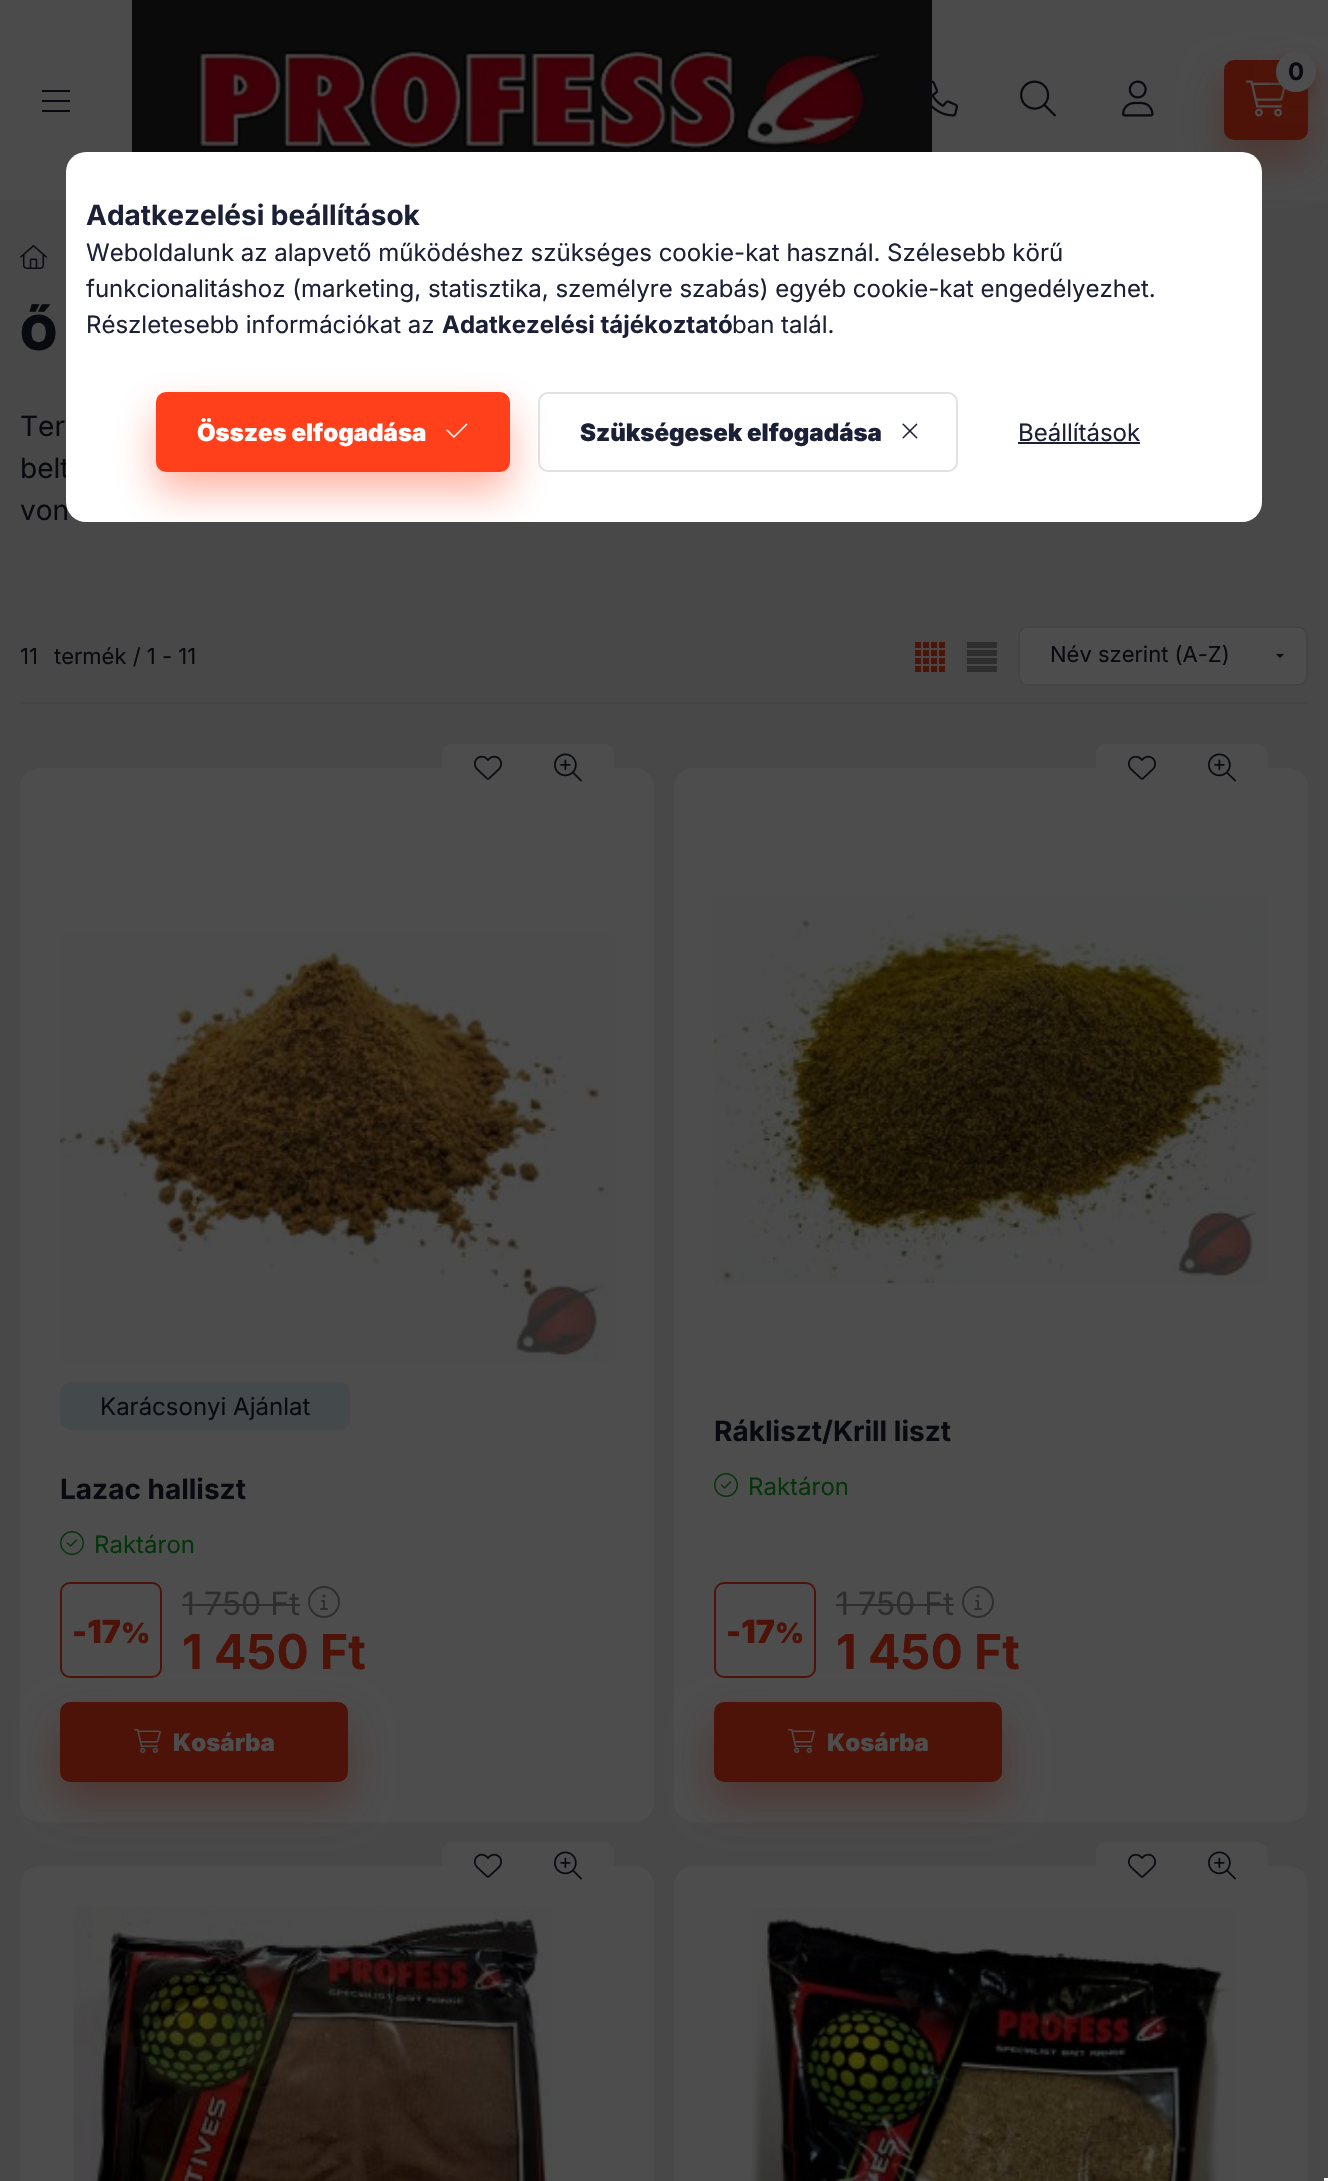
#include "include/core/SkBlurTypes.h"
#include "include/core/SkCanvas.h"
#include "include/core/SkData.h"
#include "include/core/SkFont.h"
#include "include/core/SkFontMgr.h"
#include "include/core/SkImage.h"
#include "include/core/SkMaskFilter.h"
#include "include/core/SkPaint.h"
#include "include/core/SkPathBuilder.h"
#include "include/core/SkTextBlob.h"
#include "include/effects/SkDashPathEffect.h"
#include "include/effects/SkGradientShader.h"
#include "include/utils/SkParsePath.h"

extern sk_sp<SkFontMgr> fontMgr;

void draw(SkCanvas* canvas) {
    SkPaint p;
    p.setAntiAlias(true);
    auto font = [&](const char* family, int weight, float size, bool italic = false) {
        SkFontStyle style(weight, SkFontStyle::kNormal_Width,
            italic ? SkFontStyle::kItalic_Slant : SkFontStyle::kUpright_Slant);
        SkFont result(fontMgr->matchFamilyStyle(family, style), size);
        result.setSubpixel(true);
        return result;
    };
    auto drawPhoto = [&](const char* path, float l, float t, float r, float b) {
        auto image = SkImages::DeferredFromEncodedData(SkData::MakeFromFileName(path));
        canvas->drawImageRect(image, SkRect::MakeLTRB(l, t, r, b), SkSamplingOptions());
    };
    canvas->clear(0xFF494848);
    {
        const struct { float l, t, r, b; SkColor color; } items[] = {
            {0, 0, 1328, 200, 0xFF4B4B4B},
            {42, 90, 70, 92, 0xFF080A10},
            {42, 100, 70, 102, 0xFF080A10},
            {42, 110, 70, 112, 0xFF080A10},
        };
        for (auto [l, t, r, b, color] : items) {
            p.setColor(color);
            canvas->drawRect(SkRect::MakeLTRB(l, t, r, b), p);
        }
    }
    drawPhoto("media/1.png", 132, 0, 932, 152);
    drawPhoto("media/2.png", 922, 80, 958, 117);
    p.setColor(0x664D1308);
    p.setMaskFilter(SkMaskFilter::MakeBlur(kNormal_SkBlurStyle, 20));
    canvas->drawRoundRect(SkRect::MakeLTRB(1224, 80, 1308, 160), 10, 10, p);
    p.setMaskFilter(nullptr);
    p.setColor(0xFF4D1308);
    canvas->drawRoundRect(SkRect::MakeLTRB(1224, 60, 1308, 140), 10, 10, p);
    drawPhoto("media/3.png", 1246, 80, 1286, 117);
    p.setColor(0x664D1308);
    p.setMaskFilter(SkMaskFilter::MakeBlur(kNormal_SkBlurStyle, 10));
    canvas->drawRoundRect(SkRect::MakeLTRB(1276, 62, 1316, 102), 20, 20, p);
    p.setMaskFilter(nullptr);
    p.setColor(0xFF4D4D4D);
    canvas->drawCircle(1296, 72, 20, p);
    auto font1 = font("Inter", 700, 24);
    p.setColor(0xFF080A10);
    canvas->drawString("0", 1288, 80, font1, p);
    drawPhoto("media/4.png", 1020, 80, 1056, 117);
    drawPhoto("media/5.png", 1122, 80, 1154, 117);
    drawPhoto("media/6.png", 20, 245, 47, 269);
    auto font2 = font("Inter", 900, 48);
    canvas->drawString("Ő", 20, 350, font2, p);
    auto font3 = font("Inter", 400, 28);
    {
        const struct { const char* s; float x, y; } items[] = {
            {"Ter", 20, 436},
            {"belt", 20, 478},
            {"von", 20, 520},
        };
        for (auto [s, x, y] : items) {
            canvas->drawString(s, x, y, font3, p);
        }
    }
    p.setColor(0xFF444444);
    canvas->drawRect(SkRect::MakeLTRB(20, 702, 1308, 704), p);
    auto font4 = font("Inter", 400, 22);
    p.setColor(0xFF080A10);
    canvas->drawString("11", 20, 664, font4, p);
    canvas->drawString("termék / 1 - 11", 54, 664, font4, p);
    drawPhoto("media/7.png", 915, 642, 945, 672);
    drawPhoto("media/8.png", 967, 642, 997, 672);
    p.setColor(0xFF4D4D4D);
    canvas->drawRoundRect(SkRect::MakeLTRB(1019, 627, 1307, 685), 9, 9, p);
    p.setStyle(SkPaint::kStroke_Style);
    p.setStrokeWidth(2);
    p.setColor(0xFF444444);
    canvas->drawRoundRect(SkRect::MakeLTRB(1019, 627, 1307, 685), 9, 9, p);
    p.setStyle(SkPaint::kFill_Style);
    p.setColor(0xFF080A10);
    canvas->drawString("Név szerint (A-Z)", 1050, 662, font4, p);
    canvas->drawPath(SkPathBuilder().moveTo(1276, 654).lineTo(1284, 654).lineTo(1280, 658).close().detach(), p);
    p.setColor(0xFF4D4D4D);
    canvas->drawRoundRect(SkRect::MakeLTRB(20, 768, 654, 1822), 20, 20, p);
    canvas->drawRoundRect(SkRect::MakeLTRB(442, 744, 614, 792), 10, 10, p);
    drawPhoto("media/9.png", 474, 755, 502, 780);
    drawPhoto("media/10.png", 554, 753, 582, 782);
    drawPhoto("media/11.png", 60, 934, 614, 1362);
    p.setColor(0xFF444A4C);
    canvas->drawRoundRect(SkRect::MakeLTRB(60, 1382, 350, 1430), 10, 10, p);
    auto font5 = font("Inter", 400, 24);
    p.setColor(0xFF080A10);
    canvas->drawString("Karácsonyi Ajánlat", 100, 1415, font5, p);
    auto font6 = font("Inter", 700, 28);
    canvas->drawString("Lazac halliszt", 60, 1499, font6, p);
    drawPhoto("media/12.png", 60, 1531, 84, 1555);
    p.setColor(0xFF05340A);
    canvas->drawString("Raktáron", 94, 1553, font5, p);
    p.setColor(0x664D1308);
    p.setMaskFilter(SkMaskFilter::MakeBlur(kNormal_SkBlurStyle, 20));
    canvas->drawRoundRect(SkRect::MakeLTRB(60, 1722, 348, 1802), 10, 10, p);
    p.setMaskFilter(nullptr);
    p.setStyle(SkPaint::kStroke_Style);
    p.setColor(0xFF4D1308);
    canvas->drawRoundRect(SkRect::MakeLTRB(61, 1583, 161, 1677), 9, 9, p);
    auto font7 = font("Inter", 900, 32);
    p.setStyle(SkPaint::kFill_Style);
    canvas->drawString("-17", 72, 1643, font7, p);
    auto font8 = font("Inter", 900, 28);
    canvas->drawString("%", 121, 1643, font8, p);
    auto font9 = font("Inter", 400, 32);
    p.setColor(0xFF2E2E2E);
    canvas->drawString("1 750 Ft", 182, 1615, font9, p);
    canvas->drawRect(SkRect::MakeLTRB(182, 1604, 300, 1606), p);
    drawPhoto("media/13.png", 308, 1586, 340, 1618);
    auto font10 = font("Inter", 700, 48);
    p.setColor(0xFF4D1308);
    canvas->drawString("1 450 Ft", 182, 1669, font10, p);
    canvas->drawRoundRect(SkRect::MakeLTRB(60, 1702, 348, 1782), 10, 10, p);
    drawPhoto("media/14.png", 134, 1729, 161, 1753);
    auto font11 = font("Inter", 900, 24);
    p.setColor(0xFF4D4D4D);
    canvas->drawString("Kosárba", 173, 1751, font11, p);
    canvas->drawRoundRect(SkRect::MakeLTRB(674, 768, 1308, 1822), 20, 20, p);
    canvas->drawRoundRect(SkRect::MakeLTRB(1096, 744, 1268, 792), 10, 10, p);
    drawPhoto("media/9.png", 1128, 755, 1156, 780);
    drawPhoto("media/10.png", 1208, 753, 1236, 782);
    drawPhoto("media/15.png", 714, 895, 1268, 1284);
    p.setColor(0xFF080A10);
    canvas->drawString("Rákliszt/Krill liszt", 714, 1441, font6, p);
    drawPhoto("media/12.png", 714, 1473, 738, 1497);
    p.setColor(0xFF05340A);
    canvas->drawString("Raktáron", 748, 1495, font5, p);
    p.setColor(0x664D1308);
    p.setMaskFilter(SkMaskFilter::MakeBlur(kNormal_SkBlurStyle, 20));
    canvas->drawRoundRect(SkRect::MakeLTRB(714, 1722, 1002, 1802), 10, 10, p);
    p.setMaskFilter(nullptr);
    p.setStyle(SkPaint::kStroke_Style);
    p.setColor(0xFF4D1308);
    canvas->drawRoundRect(SkRect::MakeLTRB(715, 1583, 815, 1677), 9, 9, p);
    p.setStyle(SkPaint::kFill_Style);
    canvas->drawString("-17", 726, 1643, font7, p);
    canvas->drawString("%", 775, 1643, font8, p);
    p.setColor(0xFF2E2E2E);
    canvas->drawString("1 750 Ft", 836, 1615, font9, p);
    canvas->drawRect(SkRect::MakeLTRB(836, 1604, 954, 1606), p);
    drawPhoto("media/13.png", 962, 1586, 994, 1618);
    p.setColor(0xFF4D1308);
    canvas->drawString("1 450 Ft", 836, 1669, font10, p);
    canvas->drawRoundRect(SkRect::MakeLTRB(714, 1702, 1002, 1782), 10, 10, p);
    drawPhoto("media/14.png", 788, 1729, 815, 1753);
    p.setColor(0xFF4D4D4D);
    canvas->drawString("Kosárba", 827, 1751, font11, p);
    canvas->drawRoundRect(SkRect::MakeLTRB(20, 1866, 654, 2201), 20, 20, p);
    canvas->drawRoundRect(SkRect::MakeLTRB(442, 1842, 614, 1890), 10, 10, p);
    drawPhoto("media/9.png", 474, 1853, 502, 1878);
    drawPhoto("media/10.png", 554, 1851, 582, 1880);
    drawPhoto("media/16.png", 73, 1906, 554, 2181);
    canvas->drawRoundRect(SkRect::MakeLTRB(674, 1866, 1308, 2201), 20, 20, p);
    canvas->drawRoundRect(SkRect::MakeLTRB(1096, 1842, 1268, 1890), 10, 10, p);
    drawPhoto("media/9.png", 1128, 1853, 1156, 1878);
    drawPhoto("media/10.png", 1208, 1851, 1236, 1880);
    drawPhoto("media/17.png", 750, 1908, 1236, 2181);
    p.setColor(0xFFFFFFFF);
    canvas->drawRoundRect(SkRect::MakeLTRB(66, 152, 1262, 522), 20, 20, p);
    p.setColor(0xFF1B2036);
    canvas->drawString("Adatkezelési beállítások", 86, 225, font6, p);
    {
        const struct { const char* s; float x, y; } items[] = {
            {"Weboldalunk az alapvető működéshez szükséges cookie-kat használ. Szélesebb körű", 86, 261},
            {"funkcionalitáshoz (marketing, statisztika, személyre szabás) egyéb cookie-kat engedélyezhet.", 86, 297},
            {"Részletesebb információkat az", 86, 333},
        };
        for (auto [s, x, y] : items) {
            canvas->drawString(s, x, y, font5, p);
        }
    }
    canvas->drawString("Adatkezelési tájékoztató", 442, 333, font1, p);
    canvas->drawString("ban talál.", 732, 333, font5, p);
    canvas->save();
    canvas->clipPath(SkPathBuilder().moveTo(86, 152).lineTo(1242, 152).cubicTo(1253, 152, 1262, 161, 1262, 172).lineTo(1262, 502).cubicTo(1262, 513, 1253, 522, 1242, 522).lineTo(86, 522).cubicTo(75, 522, 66, 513, 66, 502).lineTo(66, 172).cubicTo(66, 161, 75, 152, 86, 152).close().detach(), true);
    p.setColor(0x66FF401B);
    p.setMaskFilter(SkMaskFilter::MakeBlur(kNormal_SkBlurStyle, 20));
    canvas->drawRoundRect(SkRect::MakeLTRB(156, 412, 510, 492), 10, 10, p);
    p.setMaskFilter(nullptr);
    canvas->restore();
    p.setColor(0xFFFF401B);
    canvas->drawRoundRect(SkRect::MakeLTRB(157, 393, 509, 471), 9, 9, p);
    p.setStyle(SkPaint::kStroke_Style);
    canvas->drawRoundRect(SkRect::MakeLTRB(157, 393, 509, 471), 9, 9, p);
    p.setStyle(SkPaint::kFill_Style);
    p.setColor(0xFFFFFFFF);
    canvas->drawString("Összes elfogadása", 197, 441, font11, p);
    drawPhoto("media/18.png", 446, 423, 468, 438);
    p.setStyle(SkPaint::kStroke_Style);
    p.setColor(0xFFE1E1E1);
    canvas->drawRoundRect(SkRect::MakeLTRB(539, 393, 957, 471), 9, 9, p);
    p.setStyle(SkPaint::kFill_Style);
    p.setColor(0xFF1B2036);
    canvas->drawString("Szükségesek elfogadása", 580, 441, font11, p);
    drawPhoto("media/19.png", 902, 423, 918, 439);
    canvas->drawString("Beállítások", 1018, 441, font5, p);
    canvas->drawRect(SkRect::MakeLTRB(1018, 442, 1140, 444), p);
    p.setColor(0xFFF5F5F5);
    canvas->drawRect(SkRect::MakeLTRB(1324, 2178, 1328, 2181), p);
}
